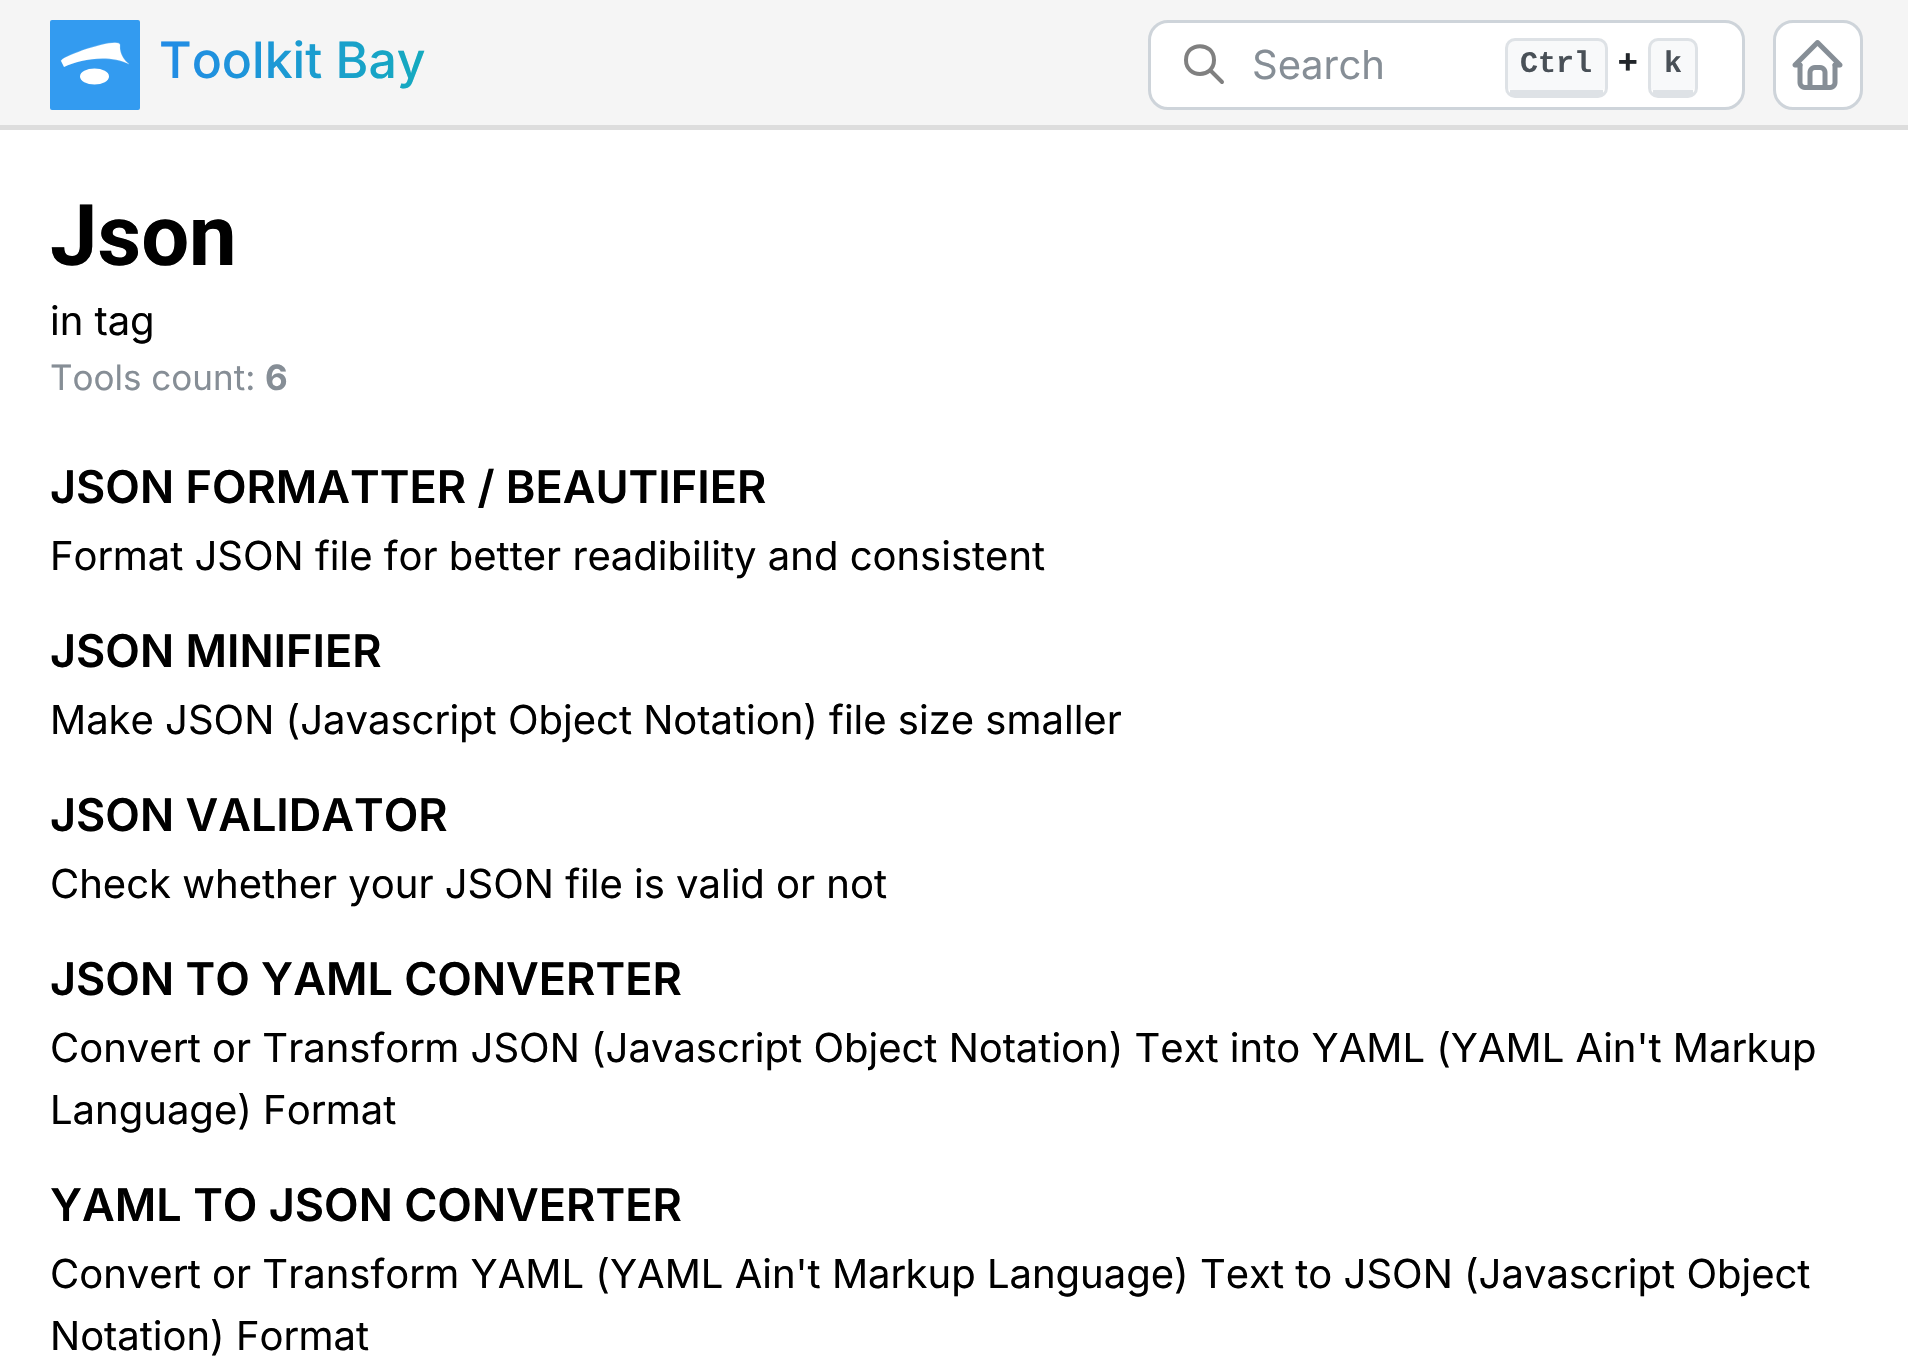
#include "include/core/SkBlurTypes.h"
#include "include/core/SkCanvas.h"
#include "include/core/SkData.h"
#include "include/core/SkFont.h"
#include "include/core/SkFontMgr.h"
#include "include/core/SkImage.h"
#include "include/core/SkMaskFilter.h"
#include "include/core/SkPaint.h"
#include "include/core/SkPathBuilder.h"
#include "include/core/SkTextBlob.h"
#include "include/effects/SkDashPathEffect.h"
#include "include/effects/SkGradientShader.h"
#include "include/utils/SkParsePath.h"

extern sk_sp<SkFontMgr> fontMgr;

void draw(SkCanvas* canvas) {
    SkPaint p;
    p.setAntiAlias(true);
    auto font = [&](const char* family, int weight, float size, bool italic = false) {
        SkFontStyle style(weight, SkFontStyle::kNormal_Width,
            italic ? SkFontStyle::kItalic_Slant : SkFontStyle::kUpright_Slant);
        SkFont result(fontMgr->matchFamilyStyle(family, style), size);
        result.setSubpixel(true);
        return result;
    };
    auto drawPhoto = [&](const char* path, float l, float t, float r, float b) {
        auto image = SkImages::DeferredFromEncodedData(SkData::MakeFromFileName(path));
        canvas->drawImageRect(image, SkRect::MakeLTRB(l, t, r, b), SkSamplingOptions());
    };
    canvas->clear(0xFFFFFFFF);
    p.setColor(0xFFF5F5F5);
    canvas->drawRect(SkRect::MakeLTRB(0, 0, 1908, 125), p);
    p.setColor(0xFFDDDDDD);
    canvas->drawRect(SkRect::MakeLTRB(0, 125, 1908, 130), p);
    p.setColor(0xFF339BF0);
    canvas->drawRoundRect(SkRect::MakeLTRB(50, 20, 140, 110), 2, 2, p);
    p.setStyle(SkPaint::kStroke_Style);
    p.setStrokeWidth(0.2f);
    p.setColor(0xFFFFFFFF);
    canvas->drawPath(SkPathBuilder().moveTo(61, 61).cubicTo(61, 56, 120.5f, 35.5f, 120, 45).cubicTo(119, 57, 129, 64, 129, 64).cubicTo(109, 54.5f, 80, 59, 64, 66.5f).detach(), p);
    p.setStyle(SkPaint::kFill_Style);
    canvas->drawPath(SkPathBuilder().moveTo(61, 61).cubicTo(61, 56, 120, 36, 120, 45).cubicTo(119, 57, 129, 64, 129, 64).cubicTo(109, 54, 80, 59, 64, 67).detach(), p);
    canvas->drawOval(SkRect::MakeLTRB(80, 68.5f, 109, 84.5f), p);
    auto font1 = font("Inter", 500, 50);
    {
        const SkColor colors[] = {0xFF228BE6, 0xFF15AABF};
        const float stops[] = {0, 1};
        const SkPoint ends[] = {{159, 66}, {425, 66}};
        p.setShader(SkGradientShader::MakeLinear(ends, colors, stops, 2, SkTileMode::kClamp));
        p.setAlpha(255);
    }
    canvas->drawString("Toolkit Bay", 159, 78, font1, p);
    p.setShader(nullptr);
    p.setColor(0xFFFFFFFF);
    canvas->drawRoundRect(SkRect::MakeLTRB(1149.5f, 21.5f, 1743.5f, 108.5f), 18.5f, 18.5f, p);
    p.setStyle(SkPaint::kStroke_Style);
    p.setStrokeWidth(3);
    p.setColor(0xFFCED4DA);
    canvas->drawRoundRect(SkRect::MakeLTRB(1149.5f, 21.5f, 1743.5f, 108.5f), 18.5f, 18.5f, p);
    p.setStrokeWidth(4);
    p.setStrokeCap(SkPaint::kRound_Cap);
    p.setStrokeJoin(SkPaint::kRound_Join);
    p.setColor(0xFF808080);
    canvas->drawPath(SkPathBuilder().moveTo(1186, 60).cubicTo(1186, 78.5f, 1214, 78.5f, 1214, 60).cubicTo(1214, 41.5f, 1186, 41.5f, 1186, 60).moveTo(1222, 82).lineTo(1210, 70).detach(), p);
    auto font2 = font("Inter", 400, 40);
    p.setStyle(SkPaint::kFill_Style);
    p.setColor(0xFF868E96);
    canvas->drawString("Search", 1252, 79, font2, p);
    p.setColor(0xFFF8F9FA);
    canvas->drawPath(SkPathBuilder().moveTo(1515, 40).lineTo(1598, 40).cubicTo(1602, 40, 1605, 43, 1605, 48).lineTo(1605, 88).cubicTo(1605, 89, 1602, 90, 1598, 90).lineTo(1515, 90).cubicTo(1511, 90, 1508, 89, 1508, 88).lineTo(1508, 48).cubicTo(1508, 43, 1511, 40, 1515, 40).close().detach(), p);
    p.setStyle(SkPaint::kStroke_Style);
    p.setStrokeWidth(3);
    p.setStrokeCap(SkPaint::kButt_Cap);
    p.setStrokeJoin(SkPaint::kMiter_Join);
    p.setColor(0xFFDEE2E6);
    canvas->drawRoundRect(SkRect::MakeLTRB(1506.5f, 39.5f, 1606.5f, 96.5f), 8.5f, 8.5f, p);
    auto font3 = font("Liberation Mono", 700, 30);
    p.setStyle(SkPaint::kFill_Style);
    p.setColor(0xFF495057);
    canvas->drawString("Ctrl", 1520, 72, font3, p);
    p.setColor(0xFFDEE2E6);
    canvas->drawRect(SkRect::MakeLTRB(1510, 90, 1603, 95), p);
    auto font4 = font("Inter", 600, 35);
    p.setColor(0xFF212529);
    canvas->drawString("+", 1616, 72, font4, p);
    p.setColor(0xFFF8F9FA);
    canvas->drawPath(SkPathBuilder().moveTo(1658, 40).lineTo(1688, 40).cubicTo(1692, 40, 1695, 43, 1695, 48).lineTo(1695, 88).cubicTo(1695, 89, 1692, 90, 1688, 90).lineTo(1658, 90).cubicTo(1653, 90, 1650, 89, 1650, 88).lineTo(1650, 48).cubicTo(1650, 43, 1653, 40, 1658, 40).close().detach(), p);
    p.setStyle(SkPaint::kStroke_Style);
    p.setColor(0xFFDEE2E6);
    canvas->drawRoundRect(SkRect::MakeLTRB(1649.5f, 39.5f, 1696.5f, 96.5f), 8.5f, 8.5f, p);
    p.setStyle(SkPaint::kFill_Style);
    p.setColor(0xFF495057);
    canvas->drawString("k", 1664, 72, font3, p);
    p.setColor(0xFFDEE2E6);
    canvas->drawRect(SkRect::MakeLTRB(1653, 90, 1693, 95), p);
    p.setColor(0xFFFFFFFF);
    canvas->drawRoundRect(SkRect::MakeLTRB(1774.5f, 21.5f, 1861.5f, 108.5f), 18.5f, 18.5f, p);
    p.setStyle(SkPaint::kStroke_Style);
    p.setColor(0xFFCED4DA);
    canvas->drawRoundRect(SkRect::MakeLTRB(1774.5f, 21.5f, 1861.5f, 108.5f), 18.5f, 18.5f, p);
    drawPhoto("media/1.png", 1792, 40, 1843, 90);
    auto font5 = font("Roboto", 700, 85);
    p.setStyle(SkPaint::kFill_Style);
    p.setColor(0xFF000000);
    canvas->drawString("Json", 50, 265, font5, p);
    canvas->drawString("in tag", 50, 335, font2, p);
    auto font6 = font("Inter", 400, 35);
    p.setColor(0xFF868E96);
    canvas->drawString("Tools count:", 50, 390, font6, p);
    auto font7 = font("Inter", 700, 35);
    canvas->drawString("6", 265, 390, font7, p);
    auto font8 = font("Inter", 600, 45);
    p.setColor(0xFF000000);
    canvas->drawString("JSON FORMATTER / BEAUTIFIER", 50, 503, font8, p);
    canvas->drawString("Format JSON file for better readibility and consistent", 50, 570, font2, p);
    canvas->drawString("JSON MINIFIER", 50, 667, font8, p);
    canvas->drawString("Make JSON (Javascript Object Notation) file size smaller", 50, 734, font2, p);
    canvas->drawString("JSON VALIDATOR", 50, 831, font8, p);
    canvas->drawString("Check whether your JSON file is valid or not", 50, 898, font2, p);
    canvas->drawString("JSON TO YAML CONVERTER", 50, 995, font8, p);
    canvas->drawString("Convert or Transform JSON (Javascript Object Notation) Text into YAML (YAML Ain't Markup", 50, 1062, font2, p);
    canvas->drawString("Language) Format", 50, 1124, font2, p);
    canvas->drawString("YAML TO JSON CONVERTER", 50, 1221, font8, p);
    canvas->drawString("Convert or Transform YAML (YAML Ain't Markup Language) Text to JSON (Javascript Object", 50, 1288, font2, p);
    canvas->drawString("Notation) Format", 50, 1350, font2, p);
}
